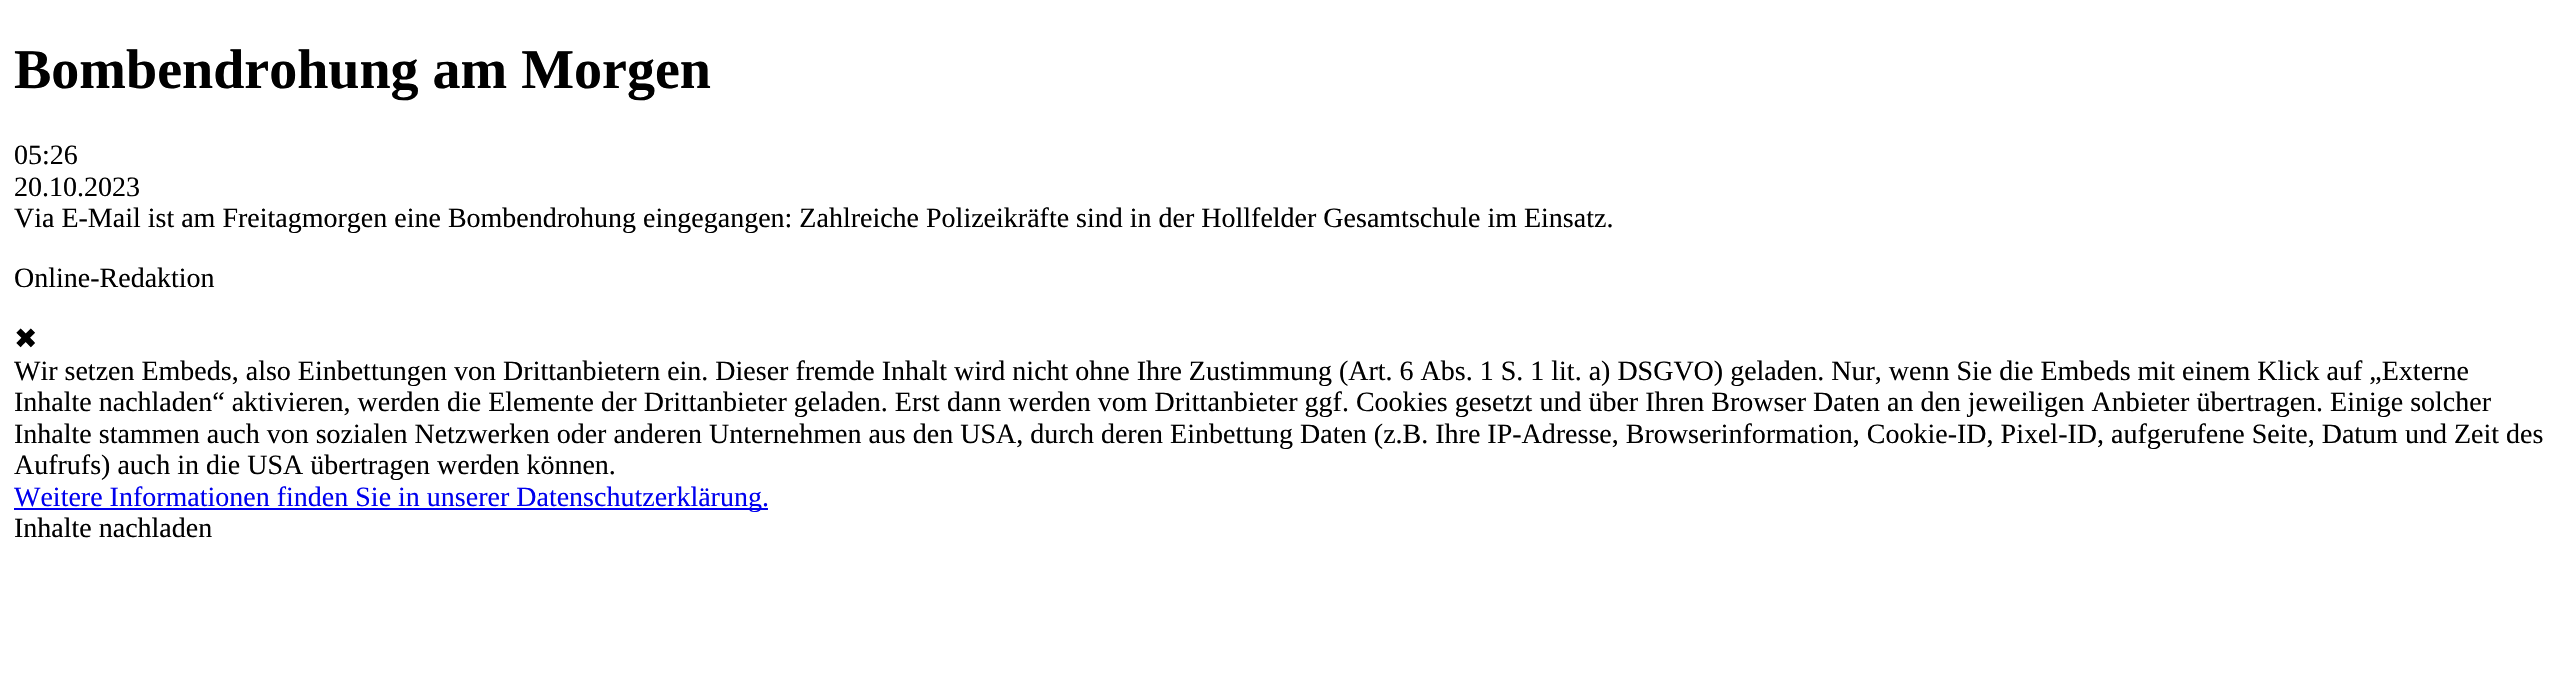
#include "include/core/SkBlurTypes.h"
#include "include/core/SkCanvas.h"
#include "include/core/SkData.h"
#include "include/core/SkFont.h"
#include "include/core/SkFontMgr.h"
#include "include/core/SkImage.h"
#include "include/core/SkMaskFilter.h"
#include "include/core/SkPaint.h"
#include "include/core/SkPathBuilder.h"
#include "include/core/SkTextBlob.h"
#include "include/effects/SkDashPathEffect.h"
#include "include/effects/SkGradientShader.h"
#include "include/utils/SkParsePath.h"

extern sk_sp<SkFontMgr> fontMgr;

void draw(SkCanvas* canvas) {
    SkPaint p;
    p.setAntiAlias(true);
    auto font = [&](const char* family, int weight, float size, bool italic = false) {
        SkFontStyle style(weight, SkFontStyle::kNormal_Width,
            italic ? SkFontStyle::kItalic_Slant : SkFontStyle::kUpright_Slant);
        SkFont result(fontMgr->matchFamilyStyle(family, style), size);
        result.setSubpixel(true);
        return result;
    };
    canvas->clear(0xFFFFFFFF);
    auto font1 = font("Liberation Serif", 700, 56);
    p.setColor(0xFF000000);
    canvas->drawString("Bombendrohung am Morgen", 14, 88, font1, p);
    auto font2 = font("Liberation Serif", 400, 28);
    {
        const struct { const char* s; float x, y; } items[] = {
            {"05:26", 14, 164},
            {"20.10.2023", 14, 196},
            {"Via E-Mail ist am Freitagmorgen eine Bombendrohung eingegangen: Zahlreiche Polizeikräfte sind in der Hollfelder Gesamtschule im Einsatz.", 14, 227},
            {"Online-Redaktion", 14, 287},
        };
        for (auto [s, x, y] : items) {
            canvas->drawString(s, x, y, font2, p);
        }
    }
    auto font3 = font("DejaVu Sans", 400, 28);
    canvas->drawString("✖", 14, 348, font3, p);
    {
        const struct { const char* s; float x, y; } items[] = {
            {"Wir setzen Embeds, also Einbettungen von Drittanbietern ein. Dieser fremde Inhalt wird nicht ohne Ihre Zustimmung (Art. 6 Abs. 1 S. 1 lit. a) DSGVO) geladen. Nur, wenn Sie die Embeds mit einem Klick auf „Externe", 14, 380},
            {"Inhalte nachladen“ aktivieren, werden die Elemente der Drittanbieter geladen. Erst dann werden vom Drittanbieter ggf. Cookies gesetzt und über Ihren Browser Daten an den jeweiligen Anbieter übertragen. Einige solcher", 14, 411},
            {"Inhalte stammen auch von sozialen Netzwerken oder anderen Unternehmen aus den USA, durch deren Einbettung Daten (z.B. Ihre IP-Adresse, Browserinformation, Cookie-ID, Pixel-ID, aufgerufene Seite, Datum und Zeit des", 14, 443},
            {"Aufrufs) auch in die USA übertragen werden können.", 14, 474},
        };
        for (auto [s, x, y] : items) {
            canvas->drawString(s, x, y, font2, p);
        }
    }
    p.setColor(0xFF0000EE);
    canvas->drawRect(SkRect::MakeLTRB(14, 508, 768, 510), p);
    canvas->drawString("Weitere Informationen finden Sie in unserer Datenschutzerklärung.", 14, 506, font2, p);
    p.setColor(0xFF000000);
    canvas->drawString("Inhalte nachladen", 14, 537, font2, p);
}
